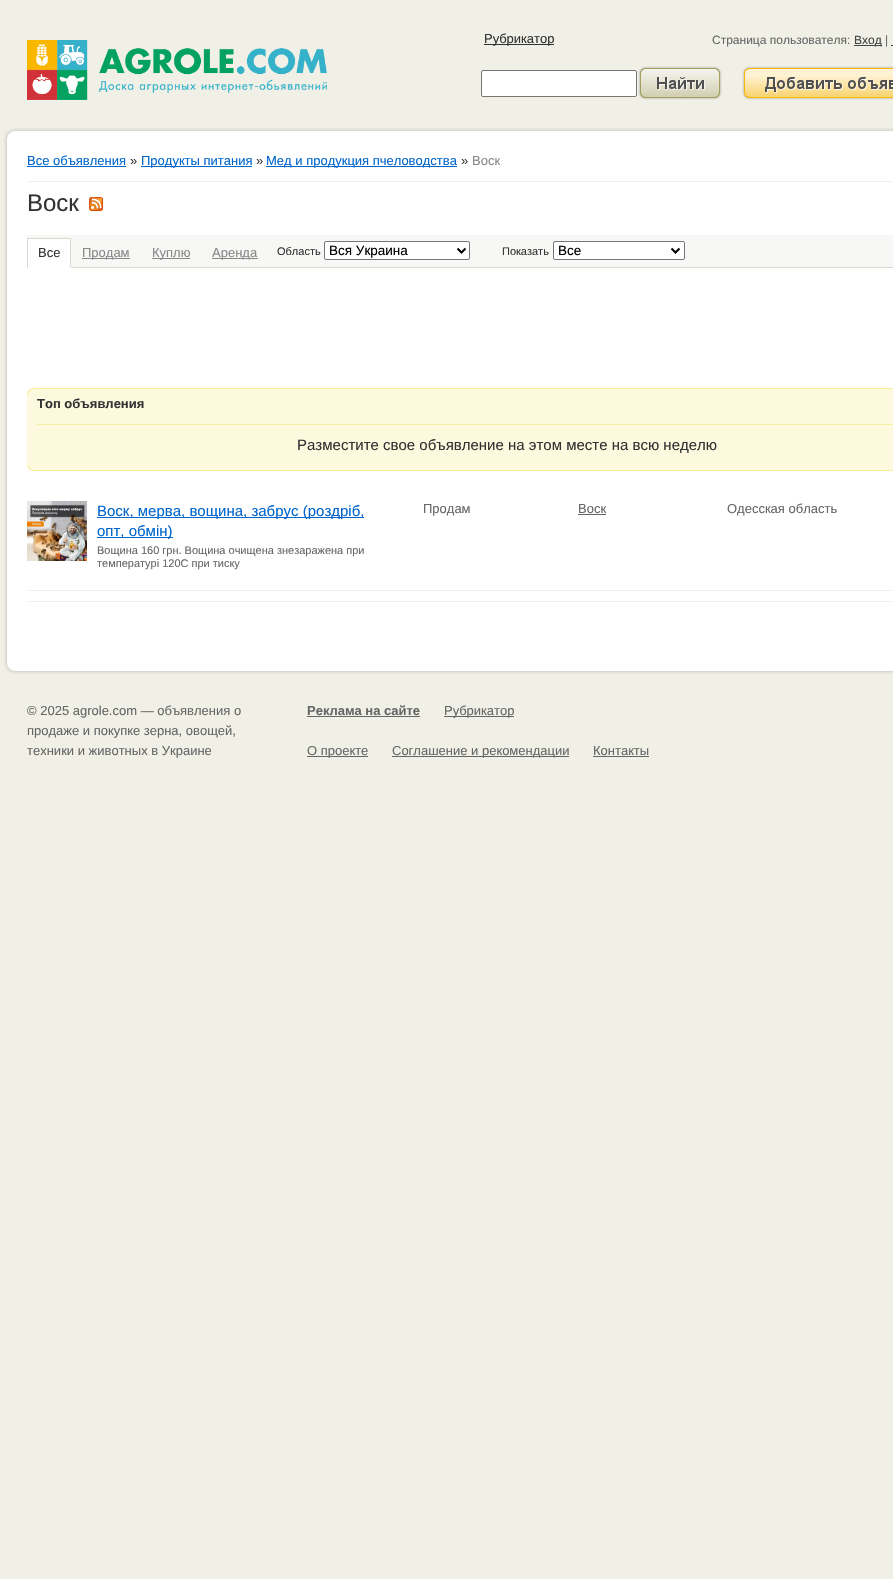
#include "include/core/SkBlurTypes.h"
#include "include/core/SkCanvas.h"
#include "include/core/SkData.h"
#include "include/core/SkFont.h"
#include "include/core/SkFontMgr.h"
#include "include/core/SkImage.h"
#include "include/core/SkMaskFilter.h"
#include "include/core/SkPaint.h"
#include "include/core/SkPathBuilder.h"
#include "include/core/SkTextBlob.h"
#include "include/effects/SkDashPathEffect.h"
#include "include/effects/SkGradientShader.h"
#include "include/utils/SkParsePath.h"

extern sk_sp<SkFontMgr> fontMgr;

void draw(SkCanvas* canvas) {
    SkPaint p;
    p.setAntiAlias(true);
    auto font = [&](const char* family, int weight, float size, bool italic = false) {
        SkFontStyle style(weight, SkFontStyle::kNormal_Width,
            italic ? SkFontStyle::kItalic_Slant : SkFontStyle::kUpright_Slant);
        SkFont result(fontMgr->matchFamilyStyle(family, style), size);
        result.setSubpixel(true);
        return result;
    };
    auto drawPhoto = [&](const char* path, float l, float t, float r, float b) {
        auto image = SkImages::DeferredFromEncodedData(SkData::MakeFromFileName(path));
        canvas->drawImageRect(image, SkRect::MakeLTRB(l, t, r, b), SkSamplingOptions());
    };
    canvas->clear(0xFFF0F0E7);
    drawPhoto("media/1.png", 27, 40, 327, 100);
    p.setColor(0xFF333333);
    canvas->drawRect(SkRect::MakeLTRB(484, 44, 554, 45), p);
    auto font1 = font("Liberation Sans", 400, 13);
    canvas->drawString("Рубрикатор", 484, 43, font1, p);
    auto font2 = font("Liberation Sans", 400, 12);
    p.setColor(0xFF666666);
    canvas->drawString("Страница пользователя:", 712, 44, font2, p);
    p.setColor(0xFF444444);
    canvas->drawRect(SkRect::MakeLTRB(854, 45, 882, 46), p);
    canvas->drawString("Вход", 854, 44, font2, p);
    p.setColor(0xFF666666);
    canvas->drawString("|", 885, 44, font2, p);
    p.setColor(0xFF444444);
    canvas->drawRect(SkRect::MakeLTRB(891, 45, 893, 46), p);
    p.setColor(0xFFFFFFFF);
    canvas->drawRoundRect(SkRect::MakeLTRB(481.5f, 70.5f, 636.5f, 96.5f), 1.5f, 1.5f, p);
    p.setStyle(SkPaint::kStroke_Style);
    p.setStrokeWidth(1);
    p.setColor(0xFF767676);
    canvas->drawRoundRect(SkRect::MakeLTRB(481.5f, 70.5f, 636.5f, 96.5f), 1.5f, 1.5f, p);
    drawPhoto("media/2.png", 638, 66, 722, 100);
    drawPhoto("media/3.png", 742, 66, 893, 100);
    drawPhoto("media/4.png", 4, 128, 893, 138);
    drawPhoto("media/5.png", 4, 138, 893, 664);
    p.setStyle(SkPaint::kFill_Style);
    p.setColor(0xFF0066CC);
    canvas->drawString("Все объявления", 27, 165, font1, p);
    canvas->drawRect(SkRect::MakeLTRB(27, 166, 126, 167), p);
    p.setColor(0xFF333333);
    canvas->drawString("»", 130, 165, font1, p);
    p.setColor(0xFF0066CC);
    canvas->drawRect(SkRect::MakeLTRB(141, 166, 252, 167), p);
    canvas->drawString("Продукты питания", 141, 165, font1, p);
    p.setColor(0xFF333333);
    canvas->drawString("»", 256, 165, font1, p);
    p.setColor(0xFF0066CC);
    canvas->drawRect(SkRect::MakeLTRB(266, 166, 457, 167), p);
    canvas->drawString("Мед и продукция пчеловодства", 266, 165, font1, p);
    p.setColor(0xFF333333);
    canvas->drawString("»", 461, 165, font1, p);
    p.setColor(0xFF888888);
    canvas->drawString("Воск", 472, 165, font1, p);
    p.setColor(0xFFF0F0E7);
    canvas->drawRect(SkRect::MakeLTRB(27, 181, 893, 182), p);
    auto font3 = font("Liberation Sans", 400, 24);
    p.setColor(0xFF333333);
    canvas->drawString("Воск", 27, 211, font3, p);
    drawPhoto("media/6.png", 89, 197, 103, 211);
    {
        const struct { float l, t, r, b; SkColor color; } items[] = {
            {27, 235, 893, 267, 0xFFF7F7F5},
            {71, 267, 893, 268, 0xFFD9D9D0},
            {28, 239, 70, 267, 0xFFFFFFFF},
            {27, 238, 71, 239, 0xFFD9D9D0},
            {70, 238, 71, 268, 0xFFD9D9D0},
            {70, 267, 71, 268, 0xFFFFFFFF},
            {27, 238, 28, 268, 0xFFD9D9D0},
        };
        for (auto [l, t, r, b, color] : items) {
            p.setColor(color);
            canvas->drawRect(SkRect::MakeLTRB(l, t, r, b), p);
        }
    }
    p.setColor(0xFF333333);
    canvas->drawString("Все", 38, 257, font1, p);
    p.setColor(0xFF888888);
    canvas->drawRect(SkRect::MakeLTRB(82, 258, 130, 259), p);
    canvas->drawString("Продам", 82, 257, font1, p);
    canvas->drawRect(SkRect::MakeLTRB(152, 258, 190, 259), p);
    canvas->drawString("Куплю", 152, 257, font1, p);
    canvas->drawRect(SkRect::MakeLTRB(212, 258, 258, 259), p);
    canvas->drawString("Аренда", 212, 257, font1, p);
    auto font4 = font("Liberation Sans", 400, 11);
    p.setColor(0xFF333333);
    canvas->drawString("Область", 277, 255, font4, p);
    p.setColor(0xFFFFFFFF);
    canvas->drawRoundRect(SkRect::MakeLTRB(324.5f, 241.5f, 469.5f, 259.5f), 1.5f, 1.5f, p);
    p.setStyle(SkPaint::kStroke_Style);
    p.setColor(0xFF767676);
    canvas->drawRoundRect(SkRect::MakeLTRB(324.5f, 241.5f, 469.5f, 259.5f), 1.5f, 1.5f, p);
    p.setStrokeWidth(2);
    p.setColor(0xFF000000);
    canvas->drawPath(SkPathBuilder().moveTo(457.5f, 248.5f).lineTo(461.5f, 252.5f).lineTo(465.5f, 248.5f).detach(), p);
    auto font5 = font("Liberation Sans", 400, 13.5f);
    p.setStyle(SkPaint::kFill_Style);
    canvas->drawString("Вся Украина", 329, 255, font5, p);
    p.setColor(0xFF333333);
    canvas->drawString("Показать", 502, 255, font4, p);
    p.setColor(0xFFFFFFFF);
    canvas->drawRoundRect(SkRect::MakeLTRB(553.5f, 241.5f, 684.5f, 259.5f), 1.5f, 1.5f, p);
    p.setStyle(SkPaint::kStroke_Style);
    p.setStrokeWidth(1);
    p.setColor(0xFF767676);
    canvas->drawRoundRect(SkRect::MakeLTRB(553.5f, 241.5f, 684.5f, 259.5f), 1.5f, 1.5f, p);
    p.setStrokeWidth(2);
    p.setColor(0xFF000000);
    canvas->drawPath(SkPathBuilder().moveTo(671.5f, 248.5f).lineTo(675.5f, 252.5f).lineTo(679.5f, 248.5f).detach(), p);
    p.setStyle(SkPaint::kFill_Style);
    canvas->drawString("Все", 558, 255, font5, p);
    drawPhoto("media/7.png", 27, 388, 893, 394);
    p.setColor(0xFFFDF9DE);
    canvas->drawRect(SkRect::MakeLTRB(27, 394, 893, 465), p);
    auto font6 = font("Liberation Sans", 700, 13);
    p.setColor(0xFF333333);
    canvas->drawString("Топ объявления", 37, 408, font6, p);
    p.setColor(0xFFF6EFA4);
    canvas->drawRect(SkRect::MakeLTRB(37, 424, 893, 425), p);
    auto font7 = font("Liberation Sans", 400, 15);
    p.setColor(0xFF333333);
    canvas->drawString("Разместите свое объявление на этом месте на всю неделю", 297, 450, font7, p);
    drawPhoto("media/8.png", 27, 465, 893, 471);
    drawPhoto("media/9.png", 27, 501, 87, 561);
    p.setColor(0xFF0066CC);
    canvas->drawRect(SkRect::MakeLTRB(97, 517, 364, 518), p);
    canvas->drawString("Воск, мерва, вощина, забрус (роздріб,", 97, 516, font7, p);
    canvas->drawRect(SkRect::MakeLTRB(97, 537, 173, 538), p);
    canvas->drawString("опт, обмін)", 97, 536, font7, p);
    p.setColor(0xFF666666);
    canvas->drawString("Вощина 160 грн. Вощина очищена знезаражена при", 97, 554, font4, p);
    canvas->drawString("температурі 120С при тиску", 97, 567, font4, p);
    canvas->drawString("Продам", 423, 513, font1, p);
    canvas->drawString("Воск", 578, 513, font1, p);
    canvas->drawRect(SkRect::MakeLTRB(578, 514, 606, 515), p);
    canvas->drawString("Одесская область", 727, 513, font1, p);
    p.setColor(0xFFF0F0E7);
    canvas->drawRect(SkRect::MakeLTRB(27, 590, 893, 591), p);
    canvas->drawRect(SkRect::MakeLTRB(27, 601, 893, 602), p);
    drawPhoto("media/10.png", 4, 664, 893, 674);
    p.setColor(0xFF666666);
    {
        const struct { const char* s; float x, y; } items[] = {
            {"© 2025 agrole.com — объявления о", 27, 715},
            {"продаже и покупке зерна, овощей,", 27, 735},
            {"техники и животных в Украине", 27, 755},
        };
        for (auto [s, x, y] : items) {
            canvas->drawString(s, x, y, font1, p);
        }
    }
    canvas->drawString("Реклама на сайте", 307, 715, font6, p);
    canvas->drawRect(SkRect::MakeLTRB(307, 716, 420, 717), p);
    canvas->drawRect(SkRect::MakeLTRB(444, 716, 514, 717), p);
    canvas->drawString("Рубрикатор", 444, 715, font1, p);
    canvas->drawRect(SkRect::MakeLTRB(307, 756, 368, 757), p);
    canvas->drawString("О проекте", 307, 755, font1, p);
    canvas->drawRect(SkRect::MakeLTRB(392, 756, 569, 757), p);
    canvas->drawString("Соглашение и рекомендации", 392, 755, font1, p);
    canvas->drawString("Контакты", 593, 755, font1, p);
    canvas->drawRect(SkRect::MakeLTRB(593, 756, 649, 757), p);
}
